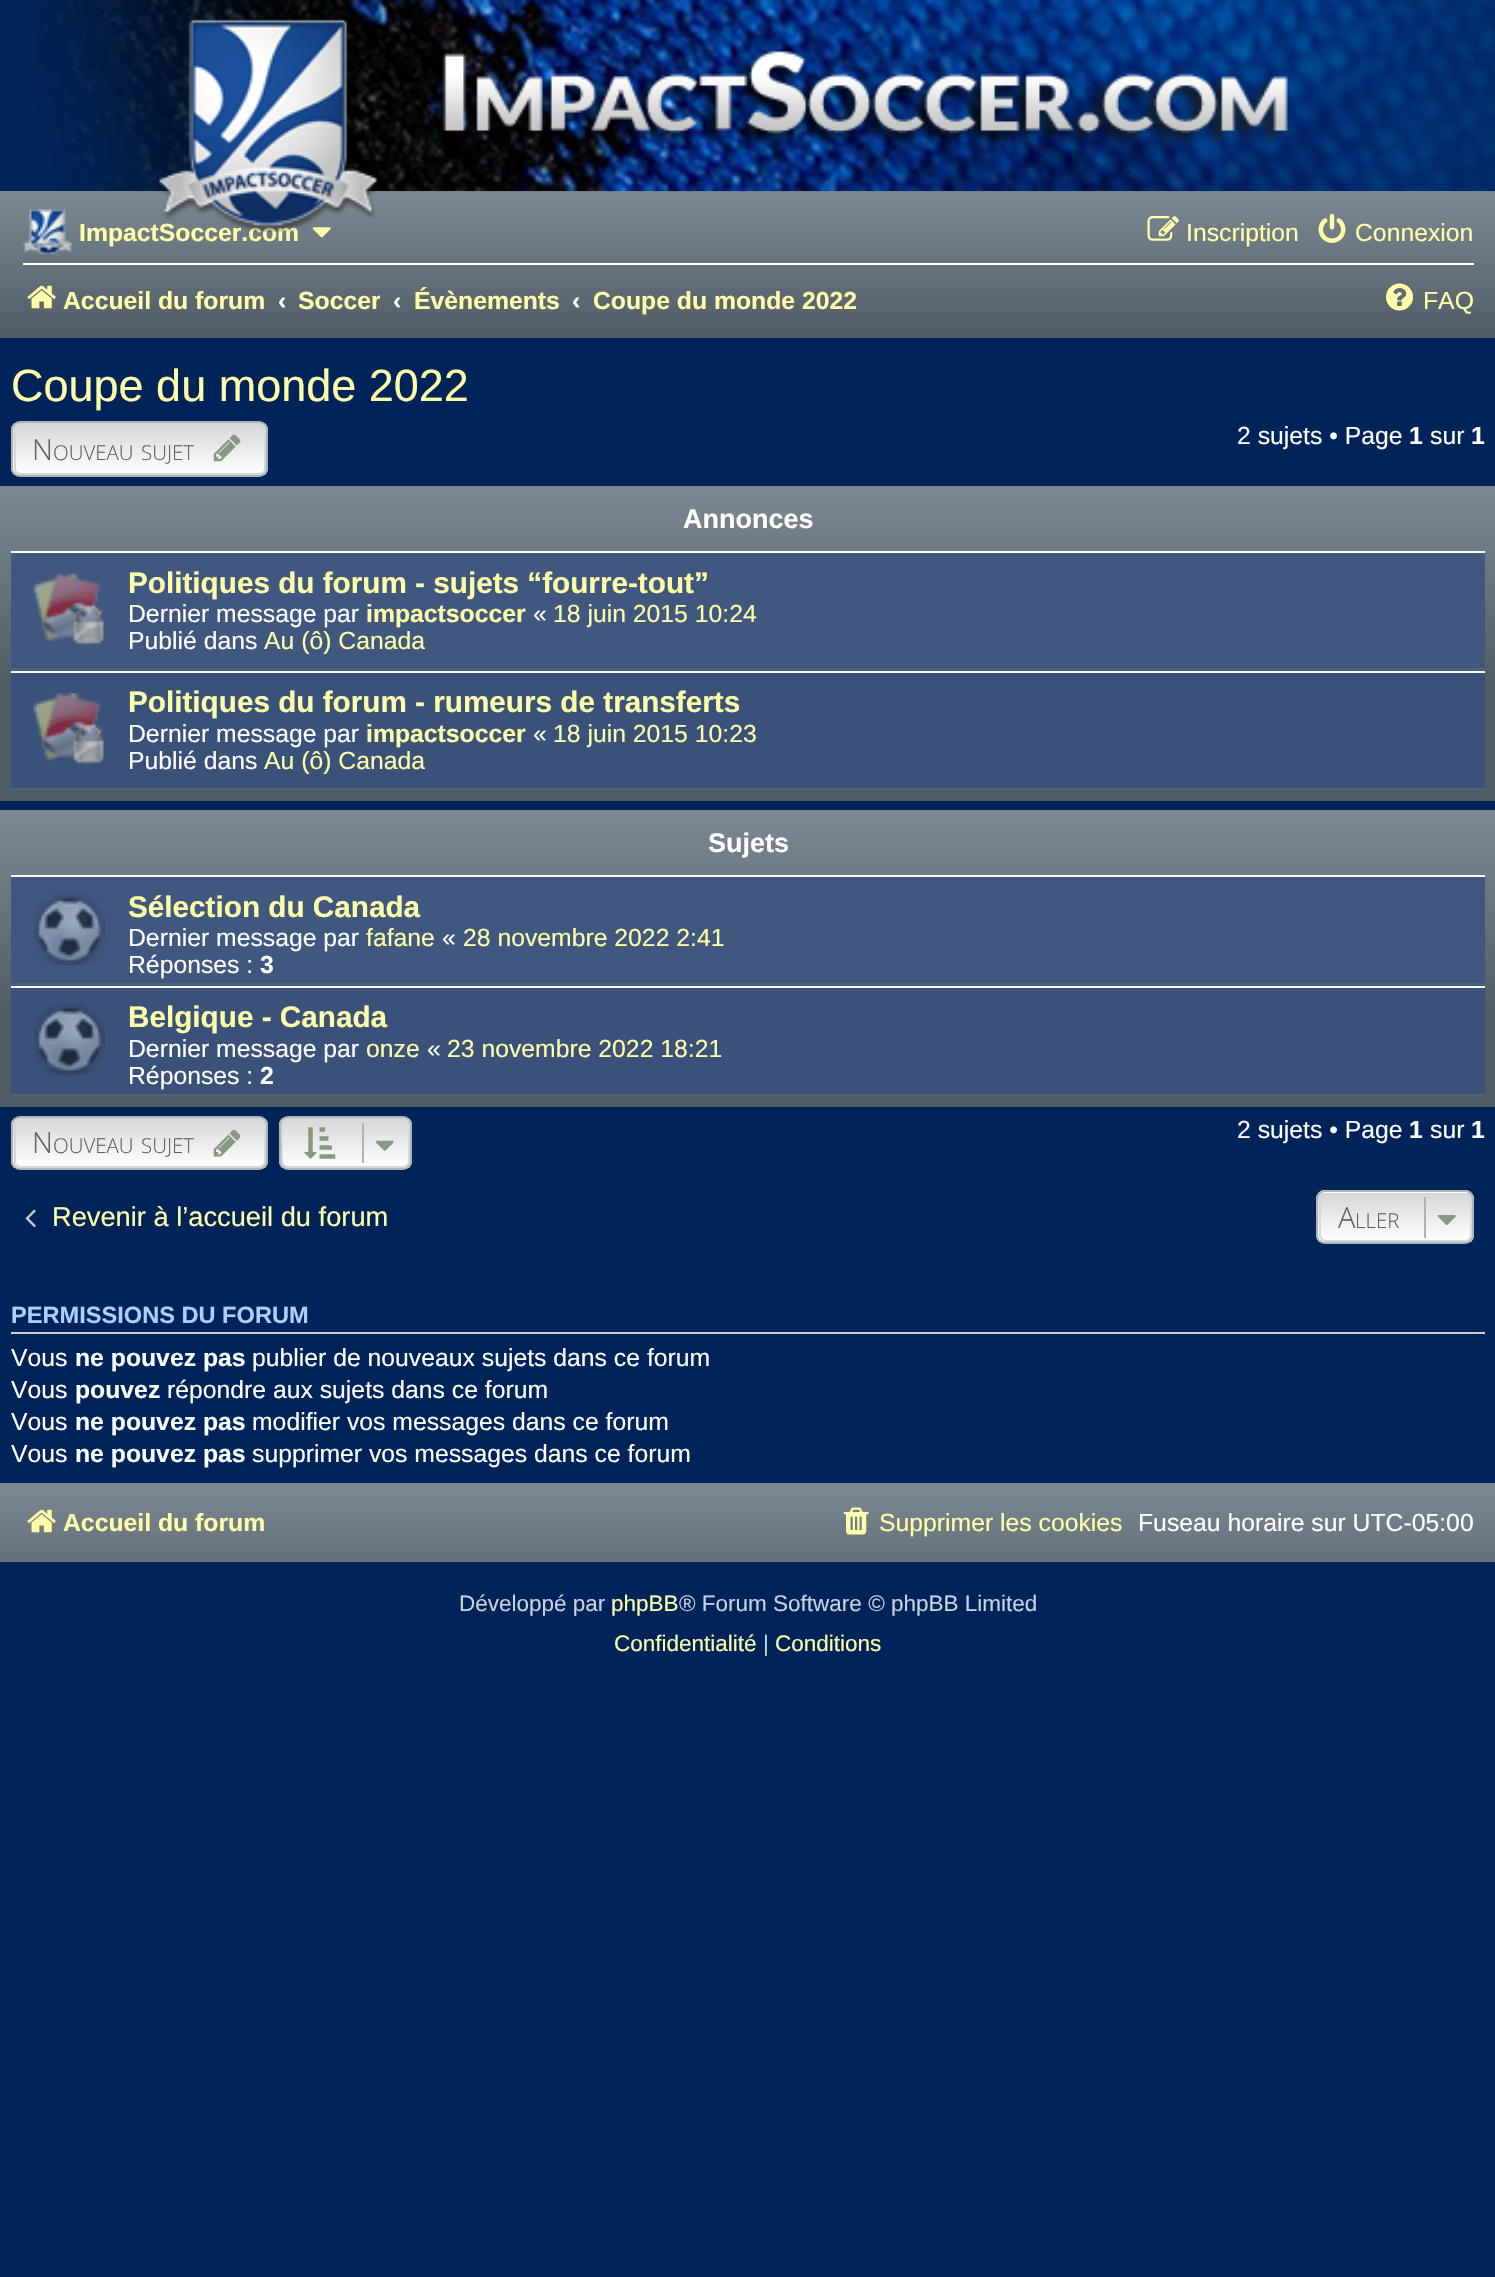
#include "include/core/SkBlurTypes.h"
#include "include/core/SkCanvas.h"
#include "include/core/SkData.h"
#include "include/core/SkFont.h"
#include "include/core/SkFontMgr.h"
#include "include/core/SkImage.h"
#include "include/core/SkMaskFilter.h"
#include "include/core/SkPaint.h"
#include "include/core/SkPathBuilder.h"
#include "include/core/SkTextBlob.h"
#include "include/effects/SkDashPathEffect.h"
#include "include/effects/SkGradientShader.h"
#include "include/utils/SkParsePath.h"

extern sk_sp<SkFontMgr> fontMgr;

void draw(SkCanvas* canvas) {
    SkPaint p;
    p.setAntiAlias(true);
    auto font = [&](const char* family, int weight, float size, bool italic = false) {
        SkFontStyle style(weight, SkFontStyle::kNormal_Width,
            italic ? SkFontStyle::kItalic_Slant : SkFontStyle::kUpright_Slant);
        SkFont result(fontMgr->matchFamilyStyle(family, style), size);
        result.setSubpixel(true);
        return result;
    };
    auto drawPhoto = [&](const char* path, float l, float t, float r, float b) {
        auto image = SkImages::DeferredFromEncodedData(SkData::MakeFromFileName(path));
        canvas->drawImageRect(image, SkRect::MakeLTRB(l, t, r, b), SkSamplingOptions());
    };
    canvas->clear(0xFF002459);
    {
        const SkColor colors[] = {0xFF7C8891, 0xFF7C8891, 0xFF505C65};
        const float stops[] = {0, 0.03f, 1};
        const SkPoint ends[] = {{748, 191}, {748, 340}};
        p.setShader(SkGradientShader::MakeLinear(ends, colors, stops, 3, SkTileMode::kClamp));
        p.setAlpha(255);
    }
    canvas->drawRect(SkRect::MakeLTRB(0, 191, 1495, 338), p);
    drawPhoto("media/1.png", 34, 0, 1495, 192);
    auto font1 = font("Liberation Sans", 700, 24.75f);
    p.setShader(nullptr);
    p.setColor(0xFFFFFFAA);
    canvas->drawString("ImpactSoccer.com", 79, 241, font1, p);
    drawPhoto("media/4.png", 312, 227, 331, 238);
    drawPhoto("media/2.png", 159, 19, 379, 232);
    drawPhoto("media/3.png", 22, 209, 72, 255);
    drawPhoto("media/5.png", 1147, 216, 1179, 241);
    auto font2 = font("Liberation Sans", 400, 24.75f);
    canvas->drawString("Inscription", 1186, 241, font2, p);
    drawPhoto("media/6.png", 1318, 213, 1346, 243);
    canvas->drawString("Connexion", 1355, 241, font2, p);
    p.setColor(0xFFFFFFFF);
    canvas->drawRect(SkRect::MakeLTRB(23, 263, 1474, 265), p);
    drawPhoto("media/7.png", 27, 285, 56, 309);
    p.setColor(0xFFFFFFAA);
    canvas->drawString("Accueil du forum", 63, 309, font1, p);
    p.setColor(0xFFFFFFFF);
    canvas->drawString("‹", 278, 309, font1, p);
    canvas->save();
    canvas->clipRect(SkRect::MakeLTRB(299, 272, 380, 326));
    p.setColor(0xFFFFFFAA);
    canvas->drawString("Soccer", 298, 309, font1, p);
    canvas->restore();
    p.setColor(0xFFFFFFFF);
    canvas->drawString("‹", 393, 309, font1, p);
    p.setColor(0xFFFFFFAA);
    canvas->drawString("Évènements", 414, 309, font1, p);
    p.setColor(0xFFFFFFFF);
    canvas->drawString("‹", 572, 309, font1, p);
    p.setColor(0xFFFFFFAA);
    canvas->drawString("Coupe du monde 2022", 593, 309, font1, p);
    drawPhoto("media/8.png", 1386, 283, 1413, 311);
    canvas->drawString("FAQ", 1423, 309, font2, p);
    auto font3 = font("Liberation Sans", 400, 45);
    canvas->drawString("Coupe du monde 2022", 11, 401, font3, p);
    canvas->save();
    canvas->clipPath(SkPathBuilder().moveTo(20, 421).lineTo(259, 421).cubicTo(264, 421, 268, 425, 268, 430).lineTo(268, 468).cubicTo(268, 473, 264, 477, 259, 477).lineTo(20, 477).cubicTo(15, 477, 11, 473, 11, 468).lineTo(11, 430).cubicTo(11, 425, 15, 421, 20, 421).close().detach(), true);
    {
        const SkColor colors[] = {0xFFD5D7DA, 0xFFFFFFFF};
        const float stops[] = {0, 1};
        const SkPoint ends[] = {{140, 423}, {140, 475}};
        p.setShader(SkGradientShader::MakeLinear(ends, colors, stops, 2, SkTileMode::kClamp));
        p.setAlpha(255);
    }
    canvas->drawRect(SkRect::MakeLTRB(11, 423, 268, 475), p);
    canvas->restore();
    p.setStyle(SkPaint::kStroke_Style);
    p.setStrokeWidth(2);
    p.setShader(nullptr);
    p.setColor(0xFFD5D7DA);
    canvas->drawRoundRect(SkRect::MakeLTRB(15, 424, 265, 474), 6, 6, p);
    p.setColor(0xFFAEB6B4);
    canvas->drawRoundRect(SkRect::MakeLTRB(12, 422, 267, 476), 8, 8, p);
    auto font4 = font("Open Sans", 300, 29);
    p.setStyle(SkPaint::kFill_Style);
    p.setColor(0xFF5E5F61);
    canvas->drawString("N", 32, 460, font4, p);
    auto font5 = font("Open Sans", 300, 20.5f);
    canvas->drawString("OUVEAU", 53, 460, font5, p);
    canvas->drawString("SUJET", 141, 460, font5, p);
    drawPhoto("media/9.png", 213, 434, 241, 462);
    p.setColor(0xFFFFFFFF);
    canvas->drawString("2 sujets • Page", 1237, 444, font2, p);
    canvas->drawString("1", 1409, 444, font1, p);
    canvas->drawString("sur", 1430, 444, font2, p);
    canvas->drawString("1", 1471, 444, font1, p);
    {
        const SkColor colors[] = {0xFF7C8891, 0xFF7C8891, 0xFF505C65, 0xFF505C65};
        const float stops[] = {0, 0.01f, 0.66f, 1};
        const SkPoint ends[] = {{748, 486}, {748, 801}};
        p.setShader(SkGradientShader::MakeLinear(ends, colors, stops, 4, SkTileMode::kClamp));
        p.setAlpha(255);
    }
    canvas->drawRect(SkRect::MakeLTRB(0, 486, 1495, 801), p);
    auto font6 = font("Liberation Sans", 700, 27);
    p.setShader(nullptr);
    p.setColor(0xFFFFFFFF);
    canvas->drawString("Annonces", 683, 528, font6, p);
    {
        const struct { float l, t, r, b; SkColor color; } items[] = {
            {11, 553, 1485, 671, 0xFF405780},
            {11, 551, 1485, 553, 0xFFFFFFFF},
            {11, 668, 1485, 670, 0xFF516273},
        };
        for (auto [l, t, r, b, color] : items) {
            p.setColor(color);
            canvas->drawRect(SkRect::MakeLTRB(l, t, r, b), p);
        }
    }
    drawPhoto("media/10.png", 33, 573, 106, 646);
    auto font7 = font("Liberation Sans", 700, 29.7f);
    p.setColor(0xFFFFFFAA);
    canvas->drawString("Politiques du forum - sujets “fourre-tout”", 128, 593, font7, p);
    p.setColor(0xFFFFFFFF);
    canvas->drawString("Dernier message par", 128, 622, font2, p);
    p.setColor(0xFFFFFFAA);
    canvas->drawString("impactsoccer", 366, 622, font1, p);
    p.setColor(0xFFFFFFFF);
    canvas->drawString("«", 533, 622, font2, p);
    p.setColor(0xFFFFFFAA);
    canvas->drawString("18 juin 2015 10:24", 553, 622, font2, p);
    p.setColor(0xFFFFFFFF);
    canvas->drawString("Publié dans", 128, 649, font2, p);
    p.setColor(0xFFFFFFAA);
    canvas->drawString("Au (ô) Canada", 264, 649, font2, p);
    {
        const struct { float l, t, r, b; SkColor color; } items[] = {
            {11, 673, 1485, 788, 0xFF3A517A},
            {11, 671, 1485, 673, 0xFFFFFFFF},
            {11, 788, 1485, 790, 0xFF516273},
        };
        for (auto [l, t, r, b, color] : items) {
            p.setColor(color);
            canvas->drawRect(SkRect::MakeLTRB(l, t, r, b), p);
        }
    }
    drawPhoto("media/11.png", 33, 693, 106, 765);
    p.setColor(0xFFFFFFAA);
    canvas->drawString("Politiques du forum - rumeurs de transferts", 128, 712, font7, p);
    p.setColor(0xFFFFFFFF);
    canvas->drawString("Dernier message par", 128, 742, font2, p);
    p.setColor(0xFFFFFFAA);
    canvas->drawString("impactsoccer", 366, 742, font1, p);
    p.setColor(0xFFFFFFFF);
    canvas->drawString("«", 533, 742, font2, p);
    p.setColor(0xFFFFFFAA);
    canvas->drawString("18 juin 2015 10:23", 553, 742, font2, p);
    p.setColor(0xFFFFFFFF);
    canvas->drawString("Publié dans", 128, 769, font2, p);
    p.setColor(0xFFFFFFAA);
    canvas->drawString("Au (ô) Canada", 264, 769, font2, p);
    {
        const SkColor colors[] = {0xFF7C8891, 0xFF7C8891, 0xFF505C65, 0xFF505C65};
        const float stops[] = {0, 0.02f, 0.7f, 1};
        const SkPoint ends[] = {{748, 810}, {748, 1107}};
        p.setShader(SkGradientShader::MakeLinear(ends, colors, stops, 4, SkTileMode::kClamp));
        p.setAlpha(255);
    }
    canvas->drawRect(SkRect::MakeLTRB(0, 810, 1495, 1107), p);
    p.setShader(nullptr);
    p.setColor(0xFFFFFFFF);
    canvas->drawString("Sujets", 708, 852, font6, p);
    {
        const struct { float l, t, r, b; SkColor color; } items[] = {
            {11, 877, 1485, 986, 0xFF405780},
            {11, 875, 1485, 877, 0xFFFFFFFF},
            {11, 983, 1485, 985, 0xFF516273},
        };
        for (auto [l, t, r, b, color] : items) {
            p.setColor(color);
            canvas->drawRect(SkRect::MakeLTRB(l, t, r, b), p);
        }
    }
    drawPhoto("media/12.png", 34, 893, 106, 966);
    p.setColor(0xFFFFFFAA);
    canvas->drawString("Sélection du Canada", 128, 917, font7, p);
    p.setColor(0xFFFFFFFF);
    canvas->drawString("Dernier message par", 128, 946, font2, p);
    p.setColor(0xFFFFFFAA);
    canvas->drawString("fafane", 366, 946, font2, p);
    p.setColor(0xFFFFFFFF);
    canvas->drawString("«", 442, 946, font2, p);
    p.setColor(0xFFFFFFAA);
    canvas->drawString("28 novembre 2022 2:41", 463, 946, font2, p);
    p.setColor(0xFFFFFFFF);
    canvas->drawString("Réponses :", 128, 973, font2, p);
    canvas->drawString("3", 260, 973, font1, p);
    {
        const struct { float l, t, r, b; SkColor color; } items[] = {
            {11, 988, 1485, 1094, 0xFF3A517A},
            {11, 986, 1485, 988, 0xFFFFFFFF},
            {11, 1094, 1485, 1096, 0xFF516273},
        };
        for (auto [l, t, r, b, color] : items) {
            p.setColor(color);
            canvas->drawRect(SkRect::MakeLTRB(l, t, r, b), p);
        }
    }
    drawPhoto("media/13.png", 34, 1004, 106, 1076);
    p.setColor(0xFFFFFFAA);
    canvas->drawString("Belgique - Canada", 128, 1027, font7, p);
    p.setColor(0xFFFFFFFF);
    canvas->drawString("Dernier message par", 128, 1057, font2, p);
    p.setColor(0xFFFFFFAA);
    canvas->drawString("onze", 366, 1057, font2, p);
    p.setColor(0xFFFFFFFF);
    canvas->drawString("«", 427, 1057, font2, p);
    p.setColor(0xFFFFFFAA);
    canvas->drawString("23 novembre 2022 18:21", 447, 1057, font2, p);
    p.setColor(0xFFFFFFFF);
    canvas->drawString("Réponses :", 128, 1084, font2, p);
    canvas->drawString("2", 260, 1084, font1, p);
    canvas->save();
    canvas->clipPath(SkPathBuilder().moveTo(20, 1116).lineTo(259, 1116).cubicTo(264, 1116, 268, 1120, 268, 1125).lineTo(268, 1161).cubicTo(268, 1166, 264, 1170, 259, 1170).lineTo(20, 1170).cubicTo(15, 1170, 11, 1166, 11, 1161).lineTo(11, 1125).cubicTo(11, 1120, 15, 1116, 20, 1116).close().detach(), true);
    {
        const SkColor colors[] = {0xFFD5D7DA, 0xFFFFFFFF};
        const float stops[] = {0, 1};
        const SkPoint ends[] = {{140, 1118}, {140, 1168}};
        p.setShader(SkGradientShader::MakeLinear(ends, colors, stops, 2, SkTileMode::kClamp));
        p.setAlpha(255);
    }
    canvas->drawRect(SkRect::MakeLTRB(11, 1118, 268, 1168), p);
    canvas->restore();
    p.setStyle(SkPaint::kStroke_Style);
    p.setShader(nullptr);
    p.setColor(0xFFD5D7DA);
    canvas->drawRoundRect(SkRect::MakeLTRB(15, 1119, 265, 1167), 6, 6, p);
    p.setColor(0xFFAEB6B4);
    canvas->drawRoundRect(SkRect::MakeLTRB(12, 1117, 267, 1169), 8, 8, p);
    p.setStyle(SkPaint::kFill_Style);
    p.setColor(0xFF5E5F61);
    canvas->drawString("N", 32, 1153, font4, p);
    canvas->drawString("OUVEAU", 53, 1153, font5, p);
    canvas->drawString("SUJET", 141, 1153, font5, p);
    drawPhoto("media/14.png", 213, 1129, 241, 1157);
    canvas->save();
    canvas->clipPath(SkPathBuilder().moveTo(288, 1116).lineTo(403, 1116).cubicTo(408, 1116, 412, 1120, 412, 1125).lineTo(412, 1161).cubicTo(412, 1166, 408, 1170, 403, 1170).lineTo(288, 1170).cubicTo(283, 1170, 279, 1166, 279, 1161).lineTo(279, 1125).cubicTo(279, 1120, 283, 1116, 288, 1116).close().detach(), true);
    {
        const SkColor colors[] = {0xFFD5D7DA, 0xFFFFFFFF};
        const float stops[] = {0, 1};
        const SkPoint ends[] = {{345, 1118}, {345, 1168}};
        p.setShader(SkGradientShader::MakeLinear(ends, colors, stops, 2, SkTileMode::kClamp));
        p.setAlpha(255);
    }
    canvas->drawRect(SkRect::MakeLTRB(279, 1118, 412, 1168), p);
    canvas->restore();
    p.setStyle(SkPaint::kStroke_Style);
    p.setShader(nullptr);
    p.setColor(0xFFD5D7DA);
    canvas->drawRoundRect(SkRect::MakeLTRB(282, 1119, 409, 1167), 6, 6, p);
    p.setColor(0xFFAEB6B4);
    canvas->drawRoundRect(SkRect::MakeLTRB(280, 1117, 411, 1169), 8, 8, p);
    drawPhoto("media/15.png", 304, 1127, 336, 1159);
    p.setStyle(SkPaint::kFill_Style);
    canvas->drawRect(SkRect::MakeLTRB(362, 1123, 364, 1163), p);
    drawPhoto("media/16.png", 375, 1140, 394, 1151);
    p.setColor(0xFFFFFFFF);
    canvas->drawString("2 sujets • Page", 1237, 1138, font2, p);
    canvas->drawString("1", 1409, 1138, font1, p);
    canvas->drawString("sur", 1430, 1138, font2, p);
    canvas->drawString("1", 1471, 1138, font1, p);
    drawPhoto("media/17.png", 25, 1209, 36, 1228);
    auto font8 = font("Liberation Sans", 400, 27.25f);
    p.setColor(0xFFFFFFAA);
    canvas->drawString("Revenir à l’accueil du forum", 52, 1226, font8, p);
    canvas->save();
    canvas->clipPath(SkPathBuilder().moveTo(1325, 1190).lineTo(1465, 1190).cubicTo(1470, 1190, 1474, 1194, 1474, 1199).lineTo(1474, 1235).cubicTo(1474, 1240, 1470, 1244, 1465, 1244).lineTo(1325, 1244).cubicTo(1320, 1244, 1316, 1240, 1316, 1235).lineTo(1316, 1199).cubicTo(1316, 1194, 1320, 1190, 1325, 1190).close().detach(), true);
    {
        const SkColor colors[] = {0xFFD5D7DA, 0xFFFFFFFF};
        const float stops[] = {0, 1};
        const SkPoint ends[] = {{1395, 1143}, {1395, 1193}};
        p.setShader(SkGradientShader::MakeLinear(ends, colors, stops, 2, SkTileMode::kClamp));
        p.setAlpha(255);
    }
    canvas->drawRect(SkRect::MakeLTRB(1316, 1190, 1474, 1193), p);
    {
        const SkColor colors[] = {0xFFD5D7DA, 0xFFFFFFFF};
        const float stops[] = {0, 1};
        const SkPoint ends[] = {{1395, 1193}, {1395, 1242}};
        p.setShader(SkGradientShader::MakeLinear(ends, colors, stops, 2, SkTileMode::kClamp));
        p.setAlpha(255);
    }
    canvas->drawRect(SkRect::MakeLTRB(1316, 1193, 1474, 1242), p);
    canvas->restore();
    p.setStyle(SkPaint::kStroke_Style);
    p.setShader(nullptr);
    p.setColor(0xFFD5D7DA);
    canvas->drawRoundRect(SkRect::MakeLTRB(1320, 1194, 1471, 1241), 6, 6, p);
    p.setColor(0xFFAEB6B4);
    canvas->drawRoundRect(SkRect::MakeLTRB(1317, 1191, 1473, 1243), 8, 8, p);
    p.setStyle(SkPaint::kFill_Style);
    p.setColor(0xFF5E5F61);
    canvas->drawString("A", 1338, 1228, font4, p);
    canvas->drawString("LLER", 1355, 1228, font5, p);
    p.setColor(0xFFAEB6B4);
    canvas->drawRect(SkRect::MakeLTRB(1424, 1197, 1426, 1238), p);
    drawPhoto("media/18.png", 1437, 1215, 1456, 1226);
    p.setColor(0xFFCCCCCC);
    canvas->drawRect(SkRect::MakeLTRB(11, 1332, 1485, 1334), p);
    auto font9 = font("Liberation Sans", 700, 23.6f);
    p.setColor(0xFFABCFFF);
    canvas->drawString("PERMISSIONS DU FORUM", 11, 1323, font9, p);
    p.setColor(0xFFFFFFFF);
    canvas->drawString("Vous", 11, 1366, font2, p);
    canvas->drawString("ne pouvez pas", 75, 1366, font1, p);
    canvas->drawString("publier de nouveaux sujets dans ce forum", 252, 1366, font2, p);
    canvas->drawString("Vous", 11, 1398, font2, p);
    canvas->drawString("pouvez", 75, 1398, font1, p);
    canvas->drawString("répondre aux sujets dans ce forum", 167, 1398, font2, p);
    canvas->drawString("Vous", 11, 1430, font2, p);
    canvas->drawString("ne pouvez pas", 75, 1430, font1, p);
    canvas->drawString("modifier vos messages dans ce forum", 252, 1430, font2, p);
    canvas->drawString("Vous", 11, 1462, font2, p);
    canvas->drawString("ne pouvez pas", 75, 1462, font1, p);
    canvas->drawString("supprimer vos messages dans ce forum", 252, 1462, font2, p);
    {
        const SkColor colors[] = {0xFF7C8891, 0xFF7C8891, 0xFF505C65};
        const float stops[] = {0, 0.03f, 1};
        const SkPoint ends[] = {{748, 1483}, {748, 1631}};
        p.setShader(SkGradientShader::MakeLinear(ends, colors, stops, 3, SkTileMode::kClamp));
        p.setAlpha(255);
    }
    canvas->drawRect(SkRect::MakeLTRB(0, 1483, 1495, 1562), p);
    drawPhoto("media/19.png", 27, 1509, 56, 1533);
    p.setShader(nullptr);
    p.setColor(0xFFFFFFAA);
    canvas->drawString("Accueil du forum", 63, 1531, font1, p);
    drawPhoto("media/20.png", 843, 1507, 869, 1535);
    canvas->drawString("Supprimer les cookies", 879, 1531, font2, p);
    p.setColor(0xFFFFFFFF);
    canvas->drawString("Fuseau horaire sur UTC-05:00", 1138, 1531, font2, p);
    auto font10 = font("Liberation Sans", 400, 22.5f);
    p.setColor(0xFFC9D2DE);
    canvas->drawString("Développé par", 459, 1611, font10, p);
    p.setColor(0xFFFFFFAA);
    canvas->drawString("phpBB", 611, 1611, font10, p);
    p.setColor(0xFFC9D2DE);
    canvas->drawString("® Forum Software © phpBB Limited", 679, 1611, font10, p);
    p.setColor(0xFFFFFFAA);
    canvas->drawString("Confidentialité", 614, 1651, font10, p);
    p.setColor(0xFFC9D2DE);
    canvas->drawString("|", 763, 1651, font10, p);
    p.setColor(0xFFFFFFAA);
    canvas->drawString("Conditions", 775, 1651, font10, p);
}
